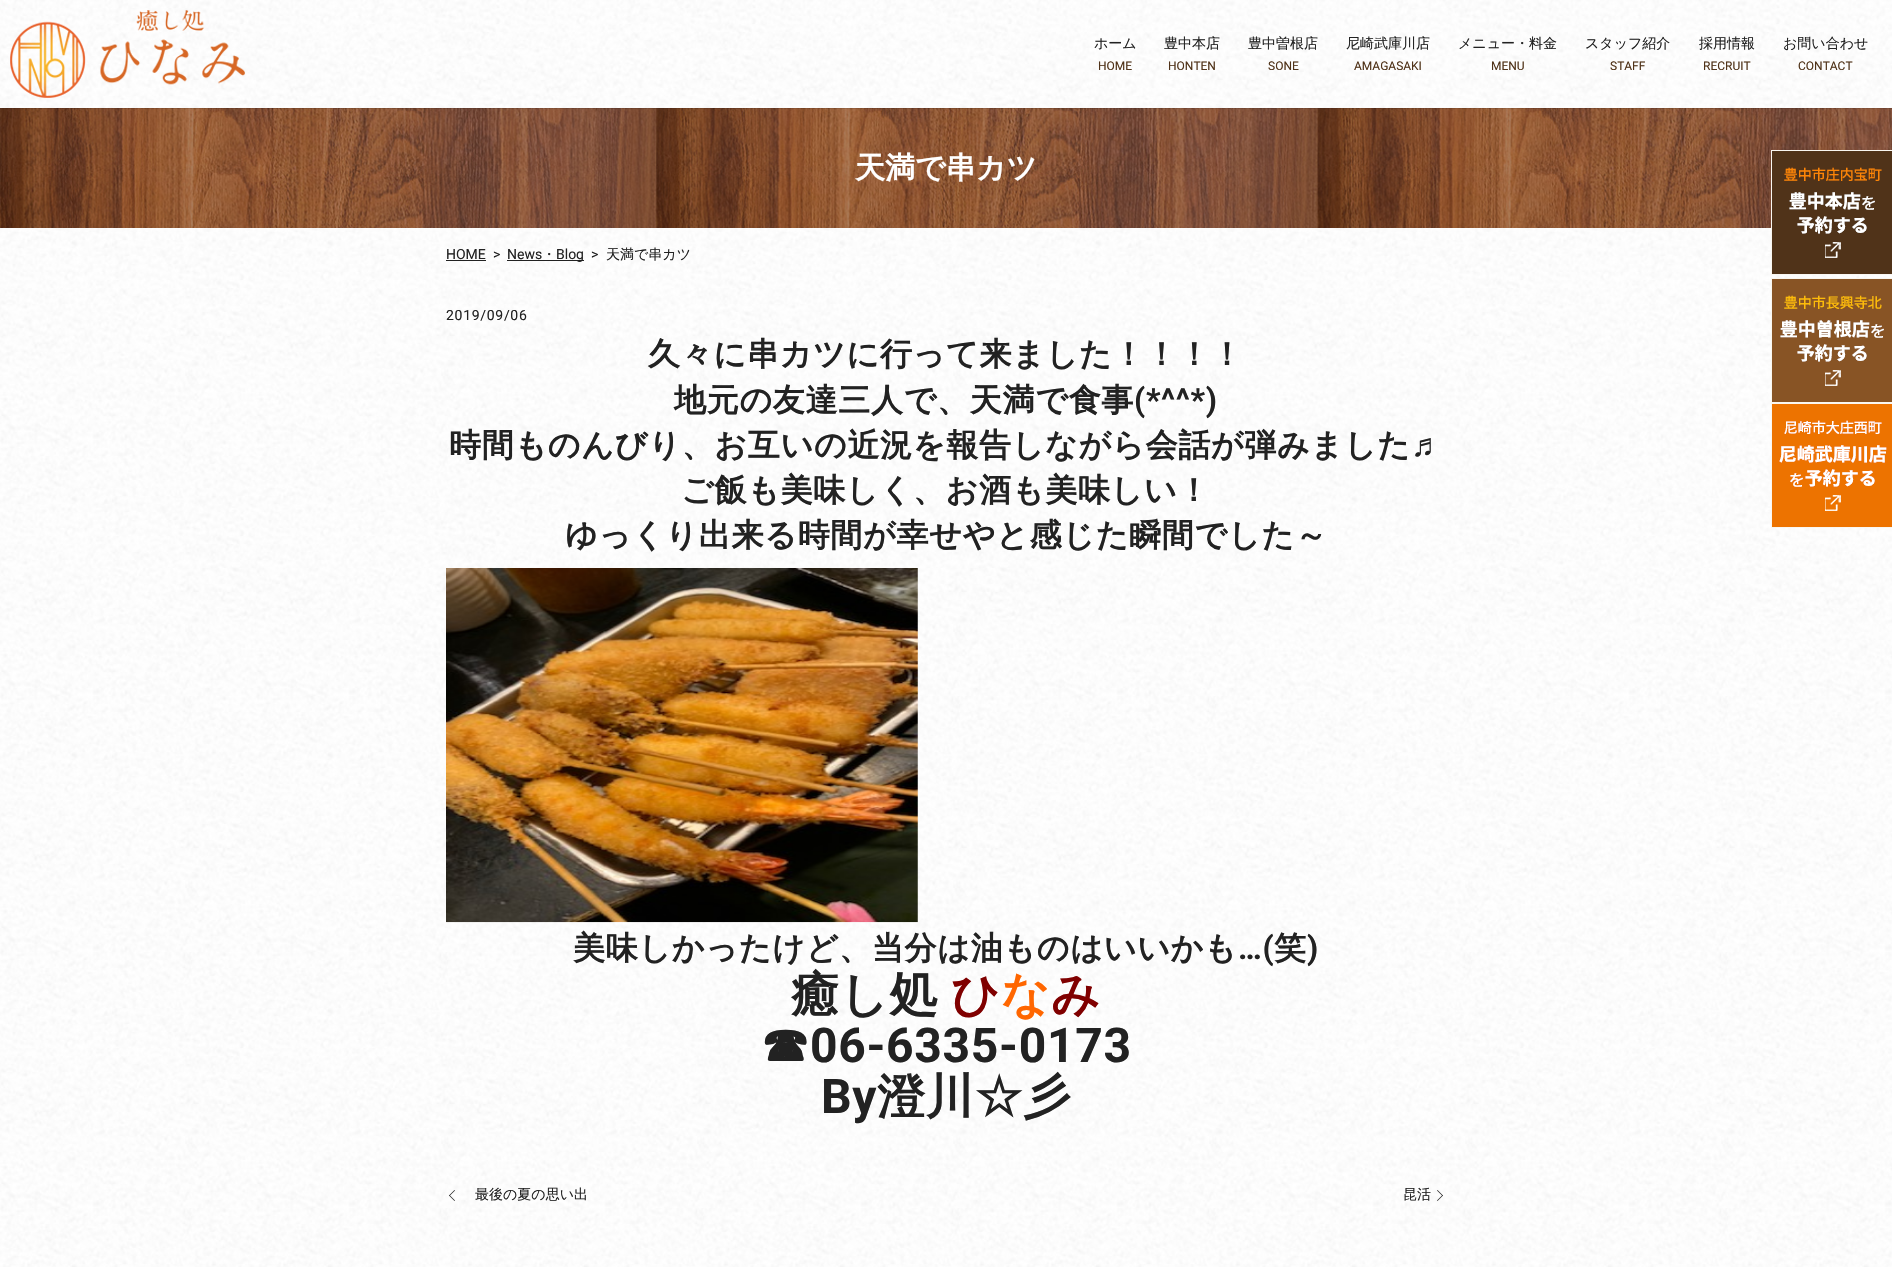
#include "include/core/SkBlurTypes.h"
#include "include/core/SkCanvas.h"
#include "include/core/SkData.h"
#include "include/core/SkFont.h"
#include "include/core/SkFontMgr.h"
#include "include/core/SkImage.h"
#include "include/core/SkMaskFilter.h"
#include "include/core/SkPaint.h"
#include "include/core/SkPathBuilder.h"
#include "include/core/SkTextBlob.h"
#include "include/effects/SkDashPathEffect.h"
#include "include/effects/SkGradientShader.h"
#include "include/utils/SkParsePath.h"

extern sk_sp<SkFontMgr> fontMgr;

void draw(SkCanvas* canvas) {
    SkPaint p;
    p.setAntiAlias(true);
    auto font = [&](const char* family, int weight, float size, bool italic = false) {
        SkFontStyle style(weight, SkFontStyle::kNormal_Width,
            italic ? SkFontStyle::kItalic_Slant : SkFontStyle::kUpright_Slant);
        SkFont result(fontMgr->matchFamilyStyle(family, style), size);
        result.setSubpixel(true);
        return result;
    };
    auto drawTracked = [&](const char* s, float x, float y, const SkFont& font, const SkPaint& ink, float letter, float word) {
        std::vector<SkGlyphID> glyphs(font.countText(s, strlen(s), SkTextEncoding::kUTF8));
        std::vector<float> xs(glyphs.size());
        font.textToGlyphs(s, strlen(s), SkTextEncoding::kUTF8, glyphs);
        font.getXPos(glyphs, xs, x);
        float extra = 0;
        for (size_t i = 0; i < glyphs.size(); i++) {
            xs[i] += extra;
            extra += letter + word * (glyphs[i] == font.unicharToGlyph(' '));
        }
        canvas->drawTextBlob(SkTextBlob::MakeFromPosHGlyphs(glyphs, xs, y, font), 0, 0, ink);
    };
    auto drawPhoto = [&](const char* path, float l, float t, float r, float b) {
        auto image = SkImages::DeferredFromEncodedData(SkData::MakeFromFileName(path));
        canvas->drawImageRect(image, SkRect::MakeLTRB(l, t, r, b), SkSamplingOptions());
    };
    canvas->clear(0xFFFFFFFF);
    drawPhoto("media/1.png", 0, 0, 1892, 1267);
    drawPhoto("media/6.png", 0, 108, 1892, 228);
    canvas->save();
    canvas->clipRect(SkRect::MakeLTRB(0, 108, 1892, 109));
    p.setColor(0x1A000000);
    p.setMaskFilter(SkMaskFilter::MakeBlur(kNormal_SkBlurStyle, 0.5f));
    canvas->drawRect(SkRect::MakeLTRB(0, 1, 1892, 109), p);
    p.setMaskFilter(nullptr);
    canvas->restore();
    drawPhoto("media/2.png", 10, 10, 245, 98);
    auto font1 = font("WenQuanYi Zen Hei", 500, 14);
    p.setColor(0xFF222222);
    canvas->drawString("ホーム", 1094, 48, font1, p);
    auto font2 = font("Roboto", 400, 12);
    p.setColor(0xFF503319);
    canvas->drawString("HOME", 1098, 70, font2, p);
    p.setColor(0xFF222222);
    canvas->drawString("豊中本店", 1164, 48, font1, p);
    p.setColor(0xFF503319);
    canvas->drawString("HONTEN", 1168, 70, font2, p);
    p.setColor(0xFF222222);
    canvas->drawString("豊中曽根店", 1248, 48, font1, p);
    p.setColor(0xFF503319);
    canvas->drawString("SONE", 1268, 70, font2, p);
    p.setColor(0xFF222222);
    canvas->drawString("尼崎武庫川店", 1346, 48, font1, p);
    p.setColor(0xFF503319);
    canvas->drawString("AMAGASAKI", 1354, 70, font2, p);
    p.setColor(0xFF222222);
    canvas->drawString("メニュー・料金", 1458, 48, font1, p);
    p.setColor(0xFF503319);
    canvas->drawString("MENU", 1491, 70, font2, p);
    p.setColor(0xFF222222);
    canvas->drawString("スタッフ紹介", 1585, 48, font1, p);
    p.setColor(0xFF503319);
    canvas->drawString("STAFF", 1610, 70, font2, p);
    p.setColor(0xFF222222);
    canvas->drawString("採用情報", 1699, 48, font1, p);
    p.setColor(0xFF503319);
    canvas->drawString("RECRUIT", 1703, 70, font2, p);
    p.setColor(0xFF222222);
    canvas->drawString("お問い合わせ", 1783, 48, font1, p);
    p.setColor(0xFF503319);
    canvas->drawString("CONTACT", 1798, 70, font2, p);
    drawPhoto("media/3.png", 1771, 150, 1892, 275);
    drawPhoto("media/4.png", 1771, 278, 1892, 403);
    drawPhoto("media/5.png", 1771, 403, 1892, 528);
    auto font3 = font("WenQuanYi Zen Hei", 700, 30);
    p.setColor(0xFFFFFFFF);
    canvas->drawString("天満で串カツ", 855, 178, font3, p);
    auto font4 = font("Roboto", 400, 14);
    p.setColor(0xFF222222);
    canvas->drawString("HOME", 446, 259, font4, p);
    canvas->drawRect(SkRect::MakeLTRB(446, 260, 486, 261), p);
    canvas->drawString(">", 493, 259, font4, p);
    canvas->drawString("News", 507, 259, font4, p);
    canvas->drawString("・", 542, 259, font1, p);
    canvas->drawRect(SkRect::MakeLTRB(507, 260, 584, 261), p);
    canvas->drawString("Blog", 556, 259, font4, p);
    canvas->drawString(">", 591, 259, font4, p);
    canvas->drawString("天満で串カツ", 606, 259, font1, p);
    drawTracked("2019/09/06", 446, 320, font4, p, 0.7f, 0);
    auto font5 = font("WenQuanYi Zen Hei", 700, 32);
    drawTracked("久々に串カツに行って来ました！！！！", 648, 365, font5, p, 0.7f, 0);
    drawTracked("地元の友達三人で、天満で食事", 674, 411, font5, p, 0.7f, 0);
    auto font6 = font("Roboto", 700, 32);
    drawTracked("(*^^*)", 1134, 411, font6, p, 0.7f, 0);
    drawTracked("時間ものんびり、お互いの近況を報告しながら会話が弾みました", 449, 456, font5, p, 0.7f, 0);
    auto font7 = font("Liberation Sans", 700, 32);
    drawTracked("♬", 1411, 456, font7, p, 0.7f, 0);
    drawTracked("ご飯も美味しく、お酒も美味しい！", 681, 501, font5, p, 0.7f, 0);
    drawTracked("ゆっくり出来る時間が幸せやと感じた瞬間でした～", 565, 546, font5, p, 0.7f, 0);
    drawPhoto("media/7.png", 446, 568, 918, 923);
    drawTracked("美味しかったけど、当分は油ものはいいかも", 573, 959, font5, p, 0.7f, 0);
    drawTracked("…(", 1238, 959, font6, p, 0.7f, 0);
    drawTracked("笑", 1274, 959, font5, p, 0.7f, 0);
    drawTracked(")", 1307, 959, font6, p, 0.7f, 0);
    auto font8 = font("WenQuanYi Zen Hei", 700, 48);
    drawTracked("癒し処", 791, 1011, font8, p, 0.7f, 0);
    p.setColor(0xFF800000);
    drawTracked("ひ", 951, 1011, font8, p, 0.7f, 0);
    p.setColor(0xFFFF6600);
    drawTracked("な", 1001, 1011, font8, p, 0.7f, 0);
    p.setColor(0xFF800000);
    drawTracked("み", 1051, 1011, font8, p, 0.7f, 0);
    p.setColor(0xFF222222);
    drawTracked("☎", 761, 1062, font8, p, 0.7f, 0);
    auto font9 = font("Roboto", 700, 48);
    drawTracked("06-6335-0173", 810, 1062, font9, p, 0.7f, 0);
    drawTracked("By", 821, 1113, font9, p, 0.7f, 0);
    drawTracked("澄川☆彡", 877, 1113, font8, p, 0.7f, 0);
    canvas->drawPath(SkPathBuilder().moveTo(449, 1195.5f).lineTo(454.5f, 1190).lineTo(455, 1190.5f).lineTo(449.5f, 1196).close().detach(), p);
    canvas->drawString("最後の夏の思い出", 475, 1199, font1, p);
    canvas->drawPath(SkPathBuilder().moveTo(454.5f, 1201).lineTo(449, 1195.5f).lineTo(449.5f, 1195).lineTo(455, 1200.5f).close().detach(), p);
    canvas->drawString("昆活", 1403, 1199, font1, p);
    canvas->drawPath(SkPathBuilder().moveTo(1437.5f, 1190).lineTo(1443, 1195.5f).lineTo(1442.5f, 1196).lineTo(1437, 1190.5f).close().detach(), p);
    canvas->drawPath(SkPathBuilder().moveTo(1443, 1195.5f).lineTo(1437.5f, 1201).lineTo(1437, 1200.5f).lineTo(1442.5f, 1195).close().detach(), p);
}
